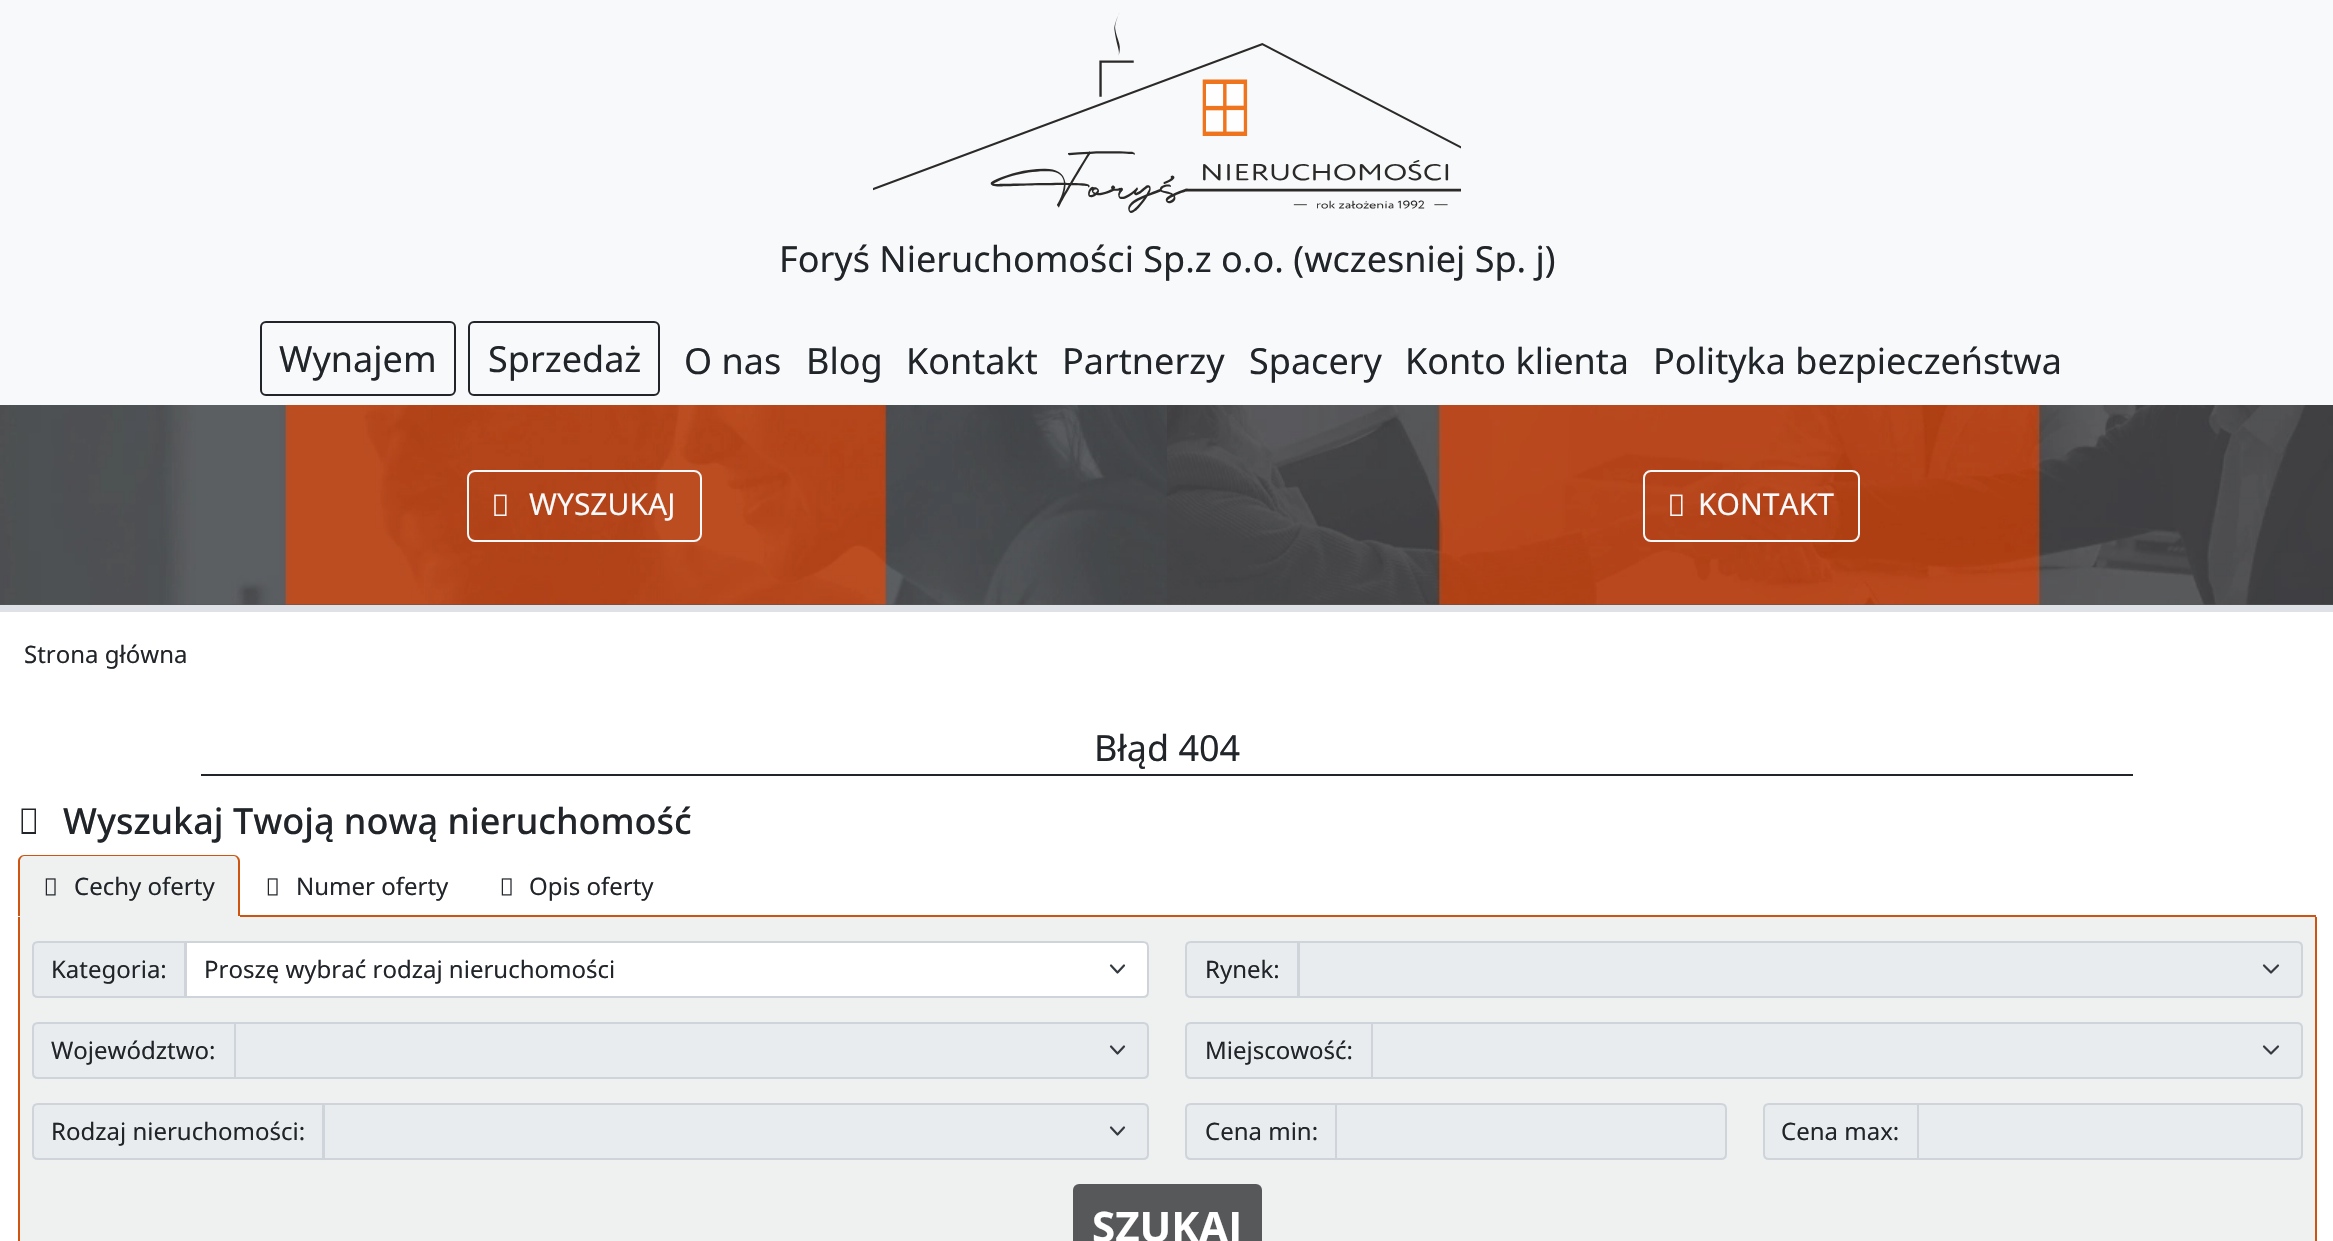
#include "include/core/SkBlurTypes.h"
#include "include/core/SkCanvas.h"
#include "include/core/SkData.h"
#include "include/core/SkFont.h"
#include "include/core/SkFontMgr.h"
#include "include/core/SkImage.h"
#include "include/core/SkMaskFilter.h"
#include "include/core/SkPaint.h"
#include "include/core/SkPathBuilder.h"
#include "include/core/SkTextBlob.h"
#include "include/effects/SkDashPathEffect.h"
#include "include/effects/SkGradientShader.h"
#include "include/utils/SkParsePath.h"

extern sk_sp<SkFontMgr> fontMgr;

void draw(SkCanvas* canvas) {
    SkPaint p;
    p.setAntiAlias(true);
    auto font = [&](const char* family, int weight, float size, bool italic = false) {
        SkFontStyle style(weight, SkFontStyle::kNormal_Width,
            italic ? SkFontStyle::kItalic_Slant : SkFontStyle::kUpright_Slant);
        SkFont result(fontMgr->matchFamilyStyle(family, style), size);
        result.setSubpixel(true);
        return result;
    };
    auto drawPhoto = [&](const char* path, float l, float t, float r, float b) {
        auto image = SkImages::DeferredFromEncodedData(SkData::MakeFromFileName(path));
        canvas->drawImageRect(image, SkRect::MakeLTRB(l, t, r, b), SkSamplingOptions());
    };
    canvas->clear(0xFFFFFFFF);
    p.setColor(0xFFF8F9FA);
    canvas->drawRect(SkRect::MakeLTRB(0, 0, 2333, 405), p);
    drawPhoto("media/1.png", 873, 13, 1461, 213);
    auto font1 = font("Noto Sans", 400, 36);
    p.setColor(0xFF212529);
    canvas->drawString("Foryś Nieruchomości Sp.z o.o. (wczesniej Sp. j)", 779, 272, font1, p);
    p.setStyle(SkPaint::kStroke_Style);
    p.setStrokeWidth(2);
    canvas->drawRoundRect(SkRect::MakeLTRB(261, 322, 455, 395), 5, 5, p);
    p.setStyle(SkPaint::kFill_Style);
    canvas->drawString("Wynajem", 279, 372, font1, p);
    p.setStyle(SkPaint::kStroke_Style);
    canvas->drawRoundRect(SkRect::MakeLTRB(469, 322, 659, 395), 5, 5, p);
    p.setStyle(SkPaint::kFill_Style);
    {
        const struct { const char* s; float x, y; } items[] = {
            {"Sprzedaż", 488, 372},
            {"O nas", 684, 374},
            {"Blog", 806, 374},
            {"Kontakt", 906, 374},
            {"Partnerzy", 1062, 374},
            {"Spacery", 1249, 374},
            {"Konto klienta", 1405, 374},
            {"Polityka bezpieczeństwa", 1653, 374},
        };
        for (auto [s, x, y] : items) {
            canvas->drawString(s, x, y, font1, p);
        }
    }
    p.setColor(0xFF57585A);
    canvas->drawRect(SkRect::MakeLTRB(0, 604, 2333, 605), p);
    p.setColor(0xFFDEE2E6);
    canvas->drawRect(SkRect::MakeLTRB(0, 605, 2333, 612), p);
    drawPhoto("media/2.png", 0, 405, 1167, 605);
    p.setStyle(SkPaint::kStroke_Style);
    p.setColor(0xFFF8F9FA);
    canvas->drawRoundRect(SkRect::MakeLTRB(468, 471, 701, 541), 7, 7, p);
    drawPhoto("media/3.png", 494, 494, 507, 516);
    auto font2 = font("Noto Sans", 400, 30);
    p.setStyle(SkPaint::kFill_Style);
    canvas->drawString("WYSZUKAJ", 529, 515, font2, p);
    drawPhoto("media/4.png", 1167, 405, 2333, 605);
    p.setStyle(SkPaint::kStroke_Style);
    canvas->drawRoundRect(SkRect::MakeLTRB(1644, 471, 1859, 541), 7, 7, p);
    drawPhoto("media/5.png", 1670, 494, 1683, 516);
    p.setStyle(SkPaint::kFill_Style);
    canvas->drawString("KONTAKT", 1698, 515, font2, p);
    auto font3 = font("Noto Sans", 400, 24);
    p.setColor(0xFF212529);
    canvas->drawString("Strona główna", 24, 663, font3, p);
    canvas->drawRect(SkRect::MakeLTRB(201, 774, 2133, 776), p);
    canvas->drawString("Błąd 404", 1094, 761, font1, p);
    canvas->drawPath(SkPathBuilder().moveTo(21.5f, 834).lineTo(21.5f, 808.5f).lineTo(36, 808.5f).lineTo(36, 834).close().moveTo(23, 832).lineTo(34.5f, 832).lineTo(34.5f, 810).lineTo(23, 810).close().detach(), p);
    auto font4 = font("Noto Sans", 500, 36);
    canvas->drawString("Wyszukaj Twoją nową nieruchomość", 63, 834, font4, p);
    p.setColor(0xFFCF5410);
    canvas->drawRect(SkRect::MakeLTRB(240, 915, 2316, 917), p);
    p.setColor(0xFFEFF1F1);
    canvas->drawPath(SkPathBuilder().moveTo(24, 855).lineTo(234, 855).cubicTo(237.5f, 855, 240, 857.5f, 240, 861).lineTo(240, 917).lineTo(18, 917).lineTo(18, 861).cubicTo(18, 857.5f, 20.5f, 855, 24, 855).close().detach(), p);
    p.setColor(0xFFCF5410);
    canvas->drawPath(SkPathBuilder(SkPathFillType::kEvenOdd).moveTo(24, 855).lineTo(234, 855).cubicTo(237, 855, 240, 858, 240, 861).lineTo(240, 916).lineTo(18, 916).lineTo(18, 861).cubicTo(18, 858, 21, 855, 24, 855).close().moveTo(24, 856).lineTo(234, 856).cubicTo(236, 856, 238, 859, 238, 861).lineTo(238, 916).lineTo(20, 916).lineTo(20, 861).cubicTo(20, 859, 22, 856, 24, 856).close().detach(), p);
    drawPhoto("media/6.png", 45, 878, 56, 896);
    p.setColor(0xFF212529);
    canvas->drawString("Cechy oferty", 74, 895, font3, p);
    drawPhoto("media/7.png", 267, 878, 278, 896);
    canvas->drawString("Numer oferty", 296, 895, font3, p);
    drawPhoto("media/7.png", 501, 878, 512, 896);
    canvas->drawString("Opis oferty", 529, 895, font3, p);
    {
        const struct { float l, t, r, b; SkColor color; } items[] = {
            {20, 917, 2315, 1241, 0xFFEFF1F1},
            {2315, 917, 2317, 1241, 0xFFCF5410},
            {18, 917, 20, 1241, 0xFFCF5410},
        };
        for (auto [l, t, r, b, color] : items) {
            p.setColor(color);
            canvas->drawRect(SkRect::MakeLTRB(l, t, r, b), p);
        }
    }
    p.setColor(0xFFE9ECEF);
    canvas->drawPath(SkPathBuilder().moveTo(38, 942).lineTo(185, 942).lineTo(185, 997).lineTo(38, 997).cubicTo(35, 997, 33, 995, 33, 992).lineTo(33, 947).cubicTo(33, 944, 35, 942, 38, 942).close().detach(), p);
    p.setStyle(SkPaint::kStroke_Style);
    p.setColor(0xFFCED4DA);
    canvas->drawPath(SkPathBuilder().moveTo(38, 942).lineTo(185, 942).lineTo(185, 997).lineTo(38, 997).cubicTo(35, 997, 33, 995, 33, 992).lineTo(33, 947).cubicTo(33, 944, 35, 942, 38, 942).close().detach(), p);
    p.setStyle(SkPaint::kFill_Style);
    p.setColor(0xFF212529);
    canvas->drawString("Kategoria:", 51, 978, font3, p);
    p.setColor(0xFFFFFFFF);
    canvas->drawPath(SkPathBuilder().moveTo(185, 941).lineTo(1143, 941).cubicTo(1146.5f, 941, 1149, 943.5f, 1149, 947).lineTo(1149, 992).cubicTo(1149, 995.5f, 1146.5f, 998, 1143, 998).lineTo(185, 998).close().detach(), p);
    p.setStyle(SkPaint::kStroke_Style);
    p.setStrokeWidth(2.2f);
    p.setStrokeCap(SkPaint::kRound_Cap);
    p.setStrokeJoin(SkPaint::kRound_Join);
    p.setColor(0xFF343A40);
    canvas->drawPath(SkPathBuilder().moveTo(1111, 965.5f).lineTo(1117.5f, 972.5f).lineTo(1124, 965.5f).detach(), p);
    p.setStrokeWidth(2);
    p.setStrokeCap(SkPaint::kButt_Cap);
    p.setStrokeJoin(SkPaint::kMiter_Join);
    p.setColor(0xFFCED4DA);
    canvas->drawPath(SkPathBuilder().moveTo(186, 942).lineTo(1143, 942).cubicTo(1146, 942, 1148, 944, 1148, 947).lineTo(1148, 992).cubicTo(1148, 995, 1146, 997, 1143, 997).lineTo(186, 997).close().detach(), p);
    p.setStyle(SkPaint::kFill_Style);
    p.setColor(0xFF212529);
    canvas->drawString("Proszę wybrać rodzaj nieruchomości", 204, 978, font3, p);
    p.setColor(0xFFE9ECEF);
    canvas->drawPath(SkPathBuilder().moveTo(1191, 942).lineTo(1298, 942).lineTo(1298, 997).lineTo(1191, 997).cubicTo(1188, 997, 1186, 995, 1186, 992).lineTo(1186, 947).cubicTo(1186, 944, 1188, 942, 1191, 942).close().detach(), p);
    p.setStyle(SkPaint::kStroke_Style);
    p.setColor(0xFFCED4DA);
    canvas->drawPath(SkPathBuilder().moveTo(1191, 942).lineTo(1298, 942).lineTo(1298, 997).lineTo(1191, 997).cubicTo(1188, 997, 1186, 995, 1186, 992).lineTo(1186, 947).cubicTo(1186, 944, 1188, 942, 1191, 942).close().detach(), p);
    p.setStyle(SkPaint::kFill_Style);
    p.setColor(0xFF212529);
    canvas->drawString("Rynek:", 1205, 978, font3, p);
    p.setColor(0xFFE9ECEF);
    canvas->drawPath(SkPathBuilder().moveTo(1298, 941).lineTo(2297, 941).cubicTo(2300.5f, 941, 2303, 943.5f, 2303, 947).lineTo(2303, 992).cubicTo(2303, 995.5f, 2300.5f, 998, 2297, 998).lineTo(1298, 998).close().detach(), p);
    p.setStyle(SkPaint::kStroke_Style);
    p.setStrokeWidth(2.2f);
    p.setStrokeCap(SkPaint::kRound_Cap);
    p.setStrokeJoin(SkPaint::kRound_Join);
    p.setColor(0xFF343A40);
    canvas->drawPath(SkPathBuilder().moveTo(2264, 965.5f).lineTo(2271, 972.5f).lineTo(2278, 965.5f).detach(), p);
    p.setStrokeWidth(2);
    p.setStrokeCap(SkPaint::kButt_Cap);
    p.setStrokeJoin(SkPaint::kMiter_Join);
    p.setColor(0xFFCED4DA);
    canvas->drawPath(SkPathBuilder().moveTo(1299, 942).lineTo(2297, 942).cubicTo(2300, 942, 2302, 944, 2302, 947).lineTo(2302, 992).cubicTo(2302, 995, 2300, 997, 2297, 997).lineTo(1299, 997).close().detach(), p);
    p.setStyle(SkPaint::kFill_Style);
    p.setColor(0xFFE9ECEF);
    canvas->drawPath(SkPathBuilder().moveTo(38, 1023).lineTo(235, 1023).lineTo(235, 1078).lineTo(38, 1078).cubicTo(35, 1078, 33, 1076, 33, 1073).lineTo(33, 1028).cubicTo(33, 1025, 35, 1023, 38, 1023).close().detach(), p);
    p.setStyle(SkPaint::kStroke_Style);
    p.setColor(0xFFCED4DA);
    canvas->drawPath(SkPathBuilder().moveTo(38, 1023).lineTo(235, 1023).lineTo(235, 1078).lineTo(38, 1078).cubicTo(35, 1078, 33, 1076, 33, 1073).lineTo(33, 1028).cubicTo(33, 1025, 35, 1023, 38, 1023).close().detach(), p);
    p.setStyle(SkPaint::kFill_Style);
    p.setColor(0xFF212529);
    canvas->drawString("Województwo:", 51, 1059, font3, p);
    p.setColor(0xFFE9ECEF);
    canvas->drawPath(SkPathBuilder().moveTo(234, 1022).lineTo(1143, 1022).cubicTo(1146.5f, 1022, 1149, 1024.5f, 1149, 1028).lineTo(1149, 1073).cubicTo(1149, 1076.5f, 1146.5f, 1079, 1143, 1079).lineTo(234, 1079).close().detach(), p);
    p.setStyle(SkPaint::kStroke_Style);
    p.setStrokeWidth(2.2f);
    p.setStrokeCap(SkPaint::kRound_Cap);
    p.setStrokeJoin(SkPaint::kRound_Join);
    p.setColor(0xFF343A40);
    canvas->drawPath(SkPathBuilder().moveTo(1111, 1046.5f).lineTo(1117.5f, 1053.5f).lineTo(1124, 1046.5f).detach(), p);
    p.setStrokeWidth(2);
    p.setStrokeCap(SkPaint::kButt_Cap);
    p.setStrokeJoin(SkPaint::kMiter_Join);
    p.setColor(0xFFCED4DA);
    canvas->drawPath(SkPathBuilder().moveTo(235, 1023).lineTo(1143, 1023).cubicTo(1146, 1023, 1148, 1025, 1148, 1028).lineTo(1148, 1073).cubicTo(1148, 1076, 1146, 1078, 1143, 1078).lineTo(235, 1078).close().detach(), p);
    p.setStyle(SkPaint::kFill_Style);
    p.setColor(0xFFE9ECEF);
    canvas->drawPath(SkPathBuilder().moveTo(1191, 1023).lineTo(1372, 1023).lineTo(1372, 1078).lineTo(1191, 1078).cubicTo(1188, 1078, 1186, 1076, 1186, 1073).lineTo(1186, 1028).cubicTo(1186, 1025, 1188, 1023, 1191, 1023).close().detach(), p);
    p.setStyle(SkPaint::kStroke_Style);
    p.setColor(0xFFCED4DA);
    canvas->drawPath(SkPathBuilder().moveTo(1191, 1023).lineTo(1372, 1023).lineTo(1372, 1078).lineTo(1191, 1078).cubicTo(1188, 1078, 1186, 1076, 1186, 1073).lineTo(1186, 1028).cubicTo(1186, 1025, 1188, 1023, 1191, 1023).close().detach(), p);
    p.setStyle(SkPaint::kFill_Style);
    p.setColor(0xFF212529);
    canvas->drawString("Miejscowość:", 1205, 1059, font3, p);
    p.setColor(0xFFE9ECEF);
    canvas->drawPath(SkPathBuilder().moveTo(1371, 1022).lineTo(2297, 1022).cubicTo(2300.5f, 1022, 2303, 1024.5f, 2303, 1028).lineTo(2303, 1073).cubicTo(2303, 1076.5f, 2300.5f, 1079, 2297, 1079).lineTo(1371, 1079).close().detach(), p);
    p.setStyle(SkPaint::kStroke_Style);
    p.setStrokeWidth(2.2f);
    p.setStrokeCap(SkPaint::kRound_Cap);
    p.setStrokeJoin(SkPaint::kRound_Join);
    p.setColor(0xFF343A40);
    canvas->drawPath(SkPathBuilder().moveTo(2264, 1046.5f).lineTo(2271, 1053.5f).lineTo(2278, 1046.5f).detach(), p);
    p.setStrokeWidth(2);
    p.setStrokeCap(SkPaint::kButt_Cap);
    p.setStrokeJoin(SkPaint::kMiter_Join);
    p.setColor(0xFFCED4DA);
    canvas->drawPath(SkPathBuilder().moveTo(1372, 1023).lineTo(2297, 1023).cubicTo(2300, 1023, 2302, 1025, 2302, 1028).lineTo(2302, 1073).cubicTo(2302, 1076, 2300, 1078, 2297, 1078).lineTo(1372, 1078).close().detach(), p);
    p.setStyle(SkPaint::kFill_Style);
    p.setColor(0xFFE9ECEF);
    canvas->drawPath(SkPathBuilder().moveTo(38, 1104).lineTo(323, 1104).lineTo(323, 1159).lineTo(38, 1159).cubicTo(35, 1159, 33, 1157, 33, 1154).lineTo(33, 1109).cubicTo(33, 1106, 35, 1104, 38, 1104).close().detach(), p);
    p.setStyle(SkPaint::kStroke_Style);
    p.setColor(0xFFCED4DA);
    canvas->drawPath(SkPathBuilder().moveTo(38, 1104).lineTo(323, 1104).lineTo(323, 1159).lineTo(38, 1159).cubicTo(35, 1159, 33, 1157, 33, 1154).lineTo(33, 1109).cubicTo(33, 1106, 35, 1104, 38, 1104).close().detach(), p);
    p.setStyle(SkPaint::kFill_Style);
    p.setColor(0xFF212529);
    canvas->drawString("Rodzaj nieruchomości:", 51, 1140, font3, p);
    p.setColor(0xFFE9ECEF);
    canvas->drawPath(SkPathBuilder().moveTo(323, 1103).lineTo(1143, 1103).cubicTo(1146.5f, 1103, 1149, 1105.5f, 1149, 1109).lineTo(1149, 1154).cubicTo(1149, 1157.5f, 1146.5f, 1160, 1143, 1160).lineTo(323, 1160).close().detach(), p);
    p.setStyle(SkPaint::kStroke_Style);
    p.setStrokeWidth(2.2f);
    p.setStrokeCap(SkPaint::kRound_Cap);
    p.setStrokeJoin(SkPaint::kRound_Join);
    p.setColor(0xFF343A40);
    canvas->drawPath(SkPathBuilder().moveTo(1111, 1127.5f).lineTo(1117.5f, 1134.5f).lineTo(1124, 1127.5f).detach(), p);
    p.setStrokeWidth(2);
    p.setStrokeCap(SkPaint::kButt_Cap);
    p.setStrokeJoin(SkPaint::kMiter_Join);
    p.setColor(0xFFCED4DA);
    canvas->drawPath(SkPathBuilder().moveTo(324, 1104).lineTo(1143, 1104).cubicTo(1146, 1104, 1148, 1106, 1148, 1109).lineTo(1148, 1154).cubicTo(1148, 1157, 1146, 1159, 1143, 1159).lineTo(324, 1159).close().detach(), p);
    p.setStyle(SkPaint::kFill_Style);
    p.setColor(0xFFE9ECEF);
    canvas->drawPath(SkPathBuilder().moveTo(1191, 1104).lineTo(1336, 1104).lineTo(1336, 1159).lineTo(1191, 1159).cubicTo(1188, 1159, 1186, 1157, 1186, 1154).lineTo(1186, 1109).cubicTo(1186, 1106, 1188, 1104, 1191, 1104).close().detach(), p);
    p.setStyle(SkPaint::kStroke_Style);
    p.setColor(0xFFCED4DA);
    canvas->drawPath(SkPathBuilder().moveTo(1191, 1104).lineTo(1336, 1104).lineTo(1336, 1159).lineTo(1191, 1159).cubicTo(1188, 1159, 1186, 1157, 1186, 1154).lineTo(1186, 1109).cubicTo(1186, 1106, 1188, 1104, 1191, 1104).close().detach(), p);
    p.setStyle(SkPaint::kFill_Style);
    p.setColor(0xFF212529);
    canvas->drawString("Cena min:", 1205, 1140, font3, p);
    p.setColor(0xFFE9ECEF);
    canvas->drawPath(SkPathBuilder().moveTo(1336, 1104).lineTo(1721, 1104).cubicTo(1724, 1104, 1726, 1106, 1726, 1109).lineTo(1726, 1154).cubicTo(1726, 1157, 1724, 1159, 1721, 1159).lineTo(1336, 1159).close().detach(), p);
    p.setStyle(SkPaint::kStroke_Style);
    p.setColor(0xFFCED4DA);
    canvas->drawPath(SkPathBuilder().moveTo(1336, 1104).lineTo(1721, 1104).cubicTo(1724, 1104, 1726, 1106, 1726, 1109).lineTo(1726, 1154).cubicTo(1726, 1157, 1724, 1159, 1721, 1159).lineTo(1336, 1159).close().detach(), p);
    p.setStyle(SkPaint::kFill_Style);
    p.setColor(0xFFE9ECEF);
    canvas->drawPath(SkPathBuilder().moveTo(1769, 1104).lineTo(1918, 1104).lineTo(1918, 1159).lineTo(1769, 1159).cubicTo(1766, 1159, 1764, 1157, 1764, 1154).lineTo(1764, 1109).cubicTo(1764, 1106, 1766, 1104, 1769, 1104).close().detach(), p);
    p.setStyle(SkPaint::kStroke_Style);
    p.setColor(0xFFCED4DA);
    canvas->drawPath(SkPathBuilder().moveTo(1769, 1104).lineTo(1918, 1104).lineTo(1918, 1159).lineTo(1769, 1159).cubicTo(1766, 1159, 1764, 1157, 1764, 1154).lineTo(1764, 1109).cubicTo(1764, 1106, 1766, 1104, 1769, 1104).close().detach(), p);
    p.setStyle(SkPaint::kFill_Style);
    p.setColor(0xFF212529);
    canvas->drawString("Cena max:", 1781, 1140, font3, p);
    p.setColor(0xFFE9ECEF);
    canvas->drawPath(SkPathBuilder().moveTo(1918, 1104).lineTo(2297, 1104).cubicTo(2300, 1104, 2302, 1106, 2302, 1109).lineTo(2302, 1154).cubicTo(2302, 1157, 2300, 1159, 2297, 1159).lineTo(1918, 1159).close().detach(), p);
    p.setStyle(SkPaint::kStroke_Style);
    p.setColor(0xFFCED4DA);
    canvas->drawPath(SkPathBuilder().moveTo(1918, 1104).lineTo(2297, 1104).cubicTo(2300, 1104, 2302, 1106, 2302, 1109).lineTo(2302, 1154).cubicTo(2302, 1157, 2300, 1159, 2297, 1159).lineTo(1918, 1159).close().detach(), p);
    p.setStyle(SkPaint::kFill_Style);
    p.setColor(0xFF57585A);
    canvas->drawRoundRect(SkRect::MakeLTRB(1073, 1184, 1262, 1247), 6, 6, p);
    auto font5 = font("Noto Sans", 700, 42);
    p.setColor(0xFFFFFFFF);
    canvas->drawString("SZUKAJ", 1092, 1242, font5, p);
}
